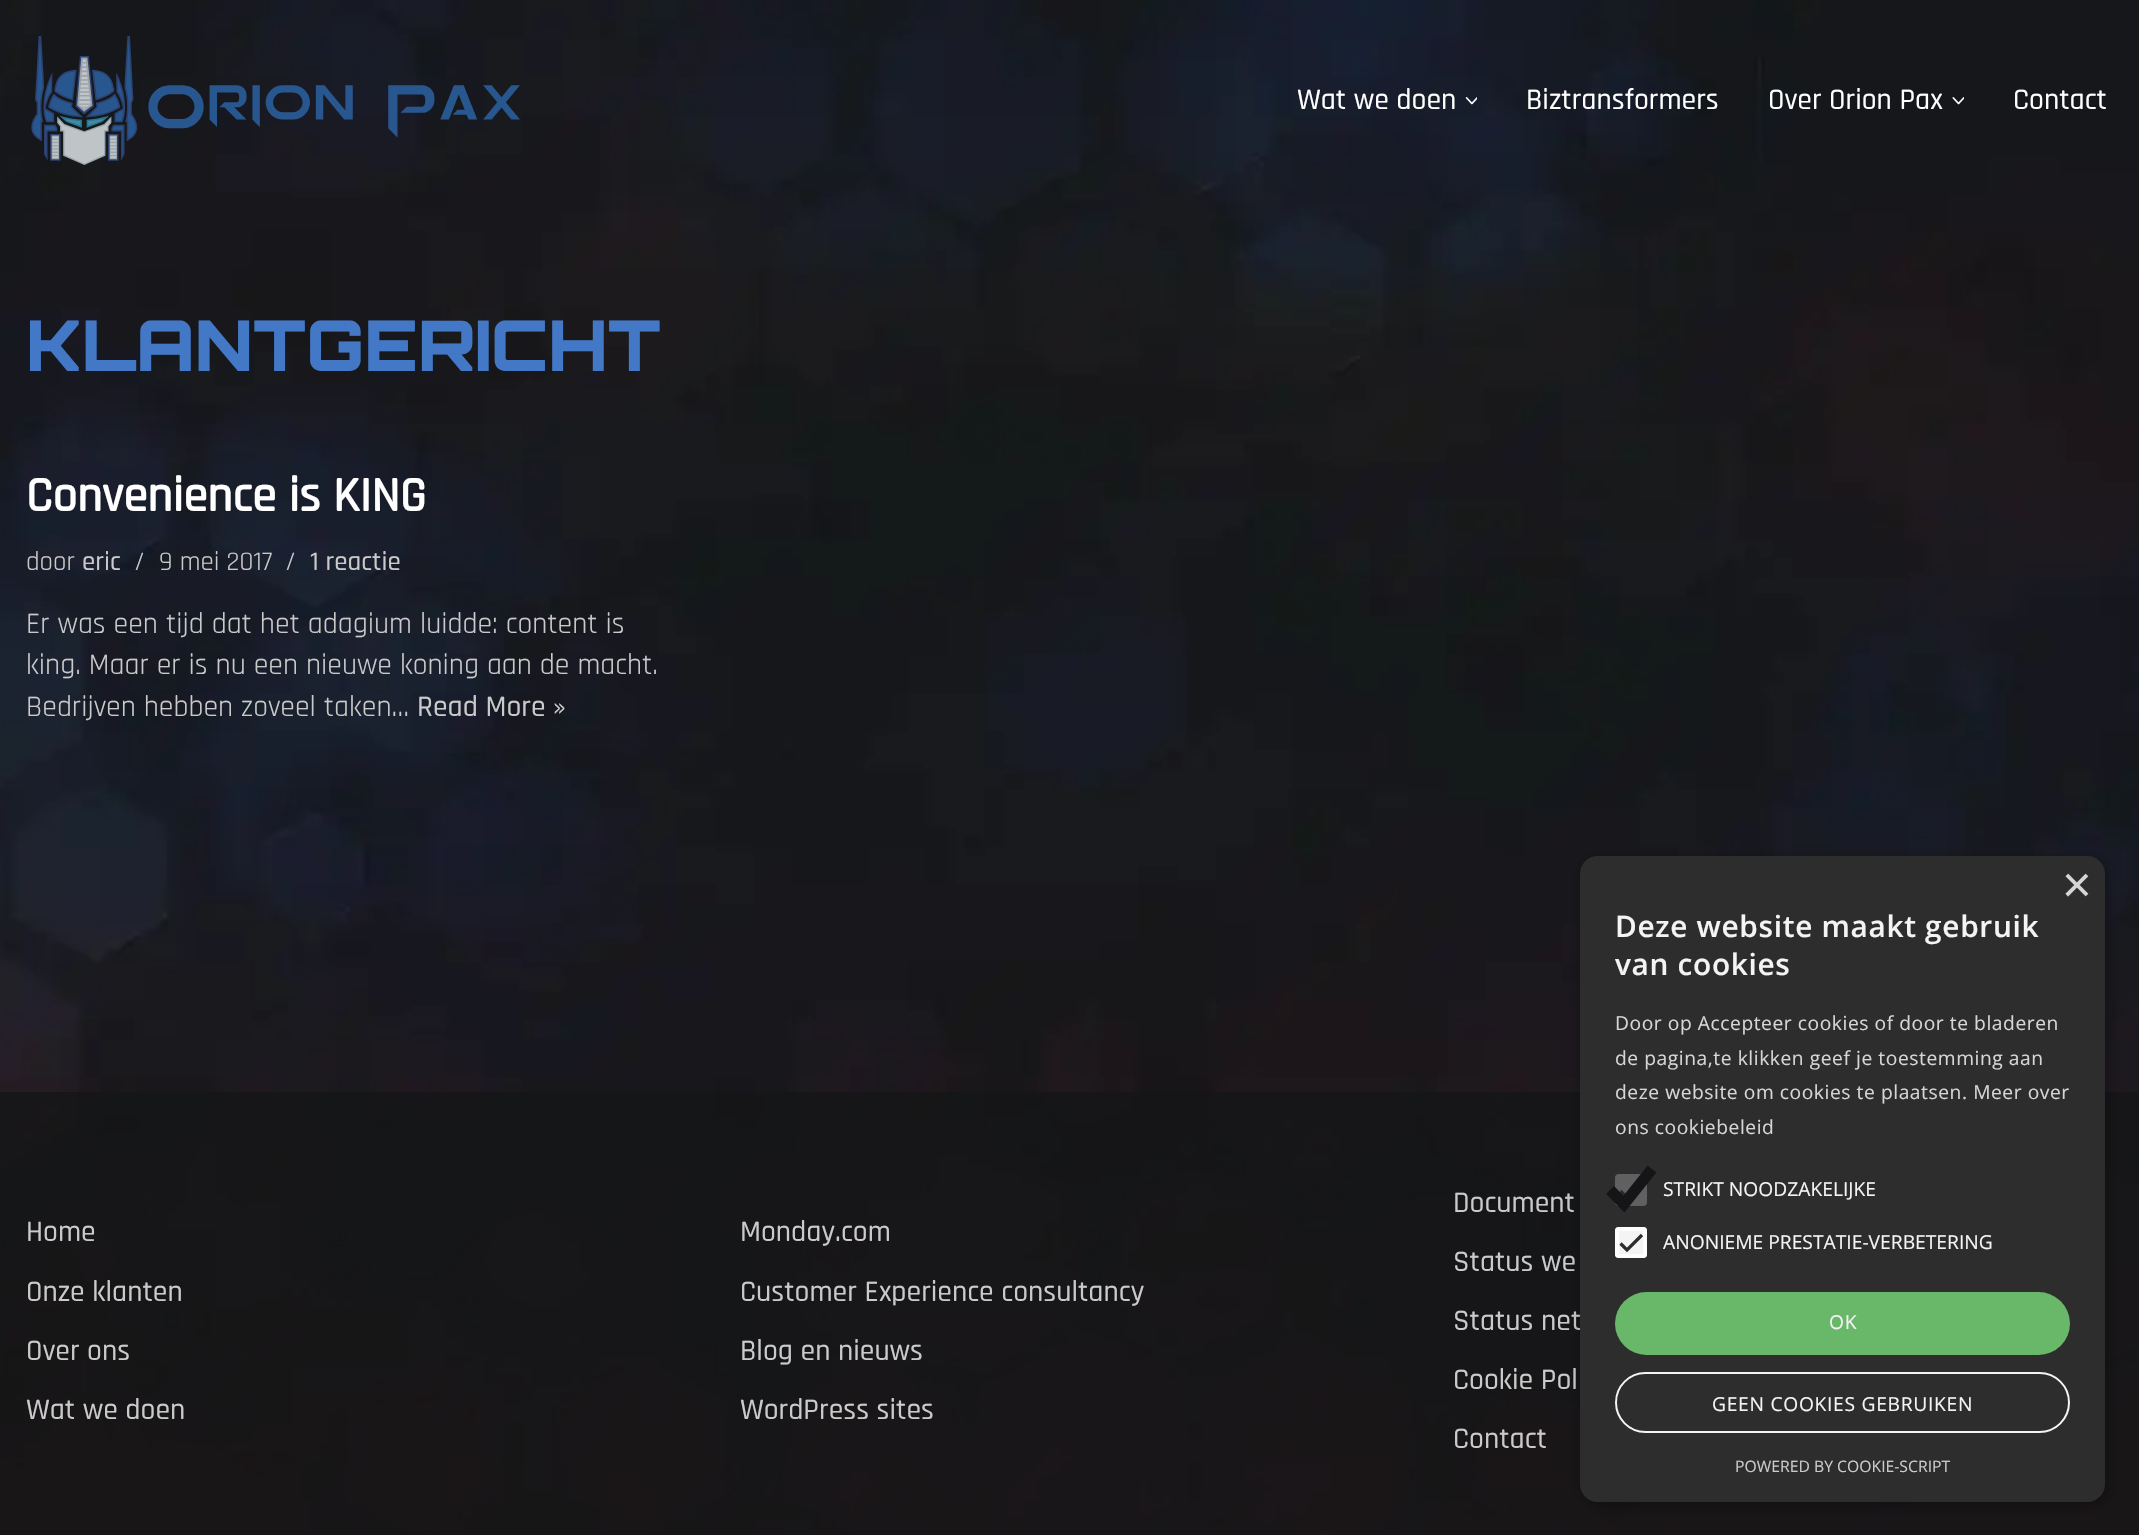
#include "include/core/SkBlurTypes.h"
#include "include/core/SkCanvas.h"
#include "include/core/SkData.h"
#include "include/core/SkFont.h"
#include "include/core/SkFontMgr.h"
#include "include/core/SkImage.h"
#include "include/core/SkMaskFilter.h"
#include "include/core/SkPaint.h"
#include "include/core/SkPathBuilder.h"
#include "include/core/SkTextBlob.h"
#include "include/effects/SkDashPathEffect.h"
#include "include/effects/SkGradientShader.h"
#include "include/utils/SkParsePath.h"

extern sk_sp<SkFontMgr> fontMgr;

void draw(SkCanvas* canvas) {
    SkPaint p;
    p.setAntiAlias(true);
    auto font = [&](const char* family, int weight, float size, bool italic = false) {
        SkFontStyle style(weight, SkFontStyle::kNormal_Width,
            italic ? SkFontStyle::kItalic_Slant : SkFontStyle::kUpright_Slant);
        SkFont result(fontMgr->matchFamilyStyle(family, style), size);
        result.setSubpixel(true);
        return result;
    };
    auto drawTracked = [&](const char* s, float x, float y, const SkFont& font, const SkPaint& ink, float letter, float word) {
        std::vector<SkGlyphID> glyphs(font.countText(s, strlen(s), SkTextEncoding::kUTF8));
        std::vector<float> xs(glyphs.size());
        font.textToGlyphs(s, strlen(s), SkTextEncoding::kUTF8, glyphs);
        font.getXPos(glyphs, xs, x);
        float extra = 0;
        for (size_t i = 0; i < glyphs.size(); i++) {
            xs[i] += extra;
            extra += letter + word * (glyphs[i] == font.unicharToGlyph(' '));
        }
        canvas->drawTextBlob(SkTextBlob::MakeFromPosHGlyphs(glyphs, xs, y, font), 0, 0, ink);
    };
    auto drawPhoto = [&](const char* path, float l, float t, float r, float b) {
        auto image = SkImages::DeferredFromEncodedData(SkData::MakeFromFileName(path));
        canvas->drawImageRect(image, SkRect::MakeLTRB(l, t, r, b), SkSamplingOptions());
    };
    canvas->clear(0xFFFFFFFF);
    drawPhoto("media/1.png", 0, 0, 2139, 1535);
    drawPhoto("media/2.png", 31, 36, 520, 165);
    auto font1 = font("Rajdhani", 500, 29.75f);
    p.setColor(0xFFFFFFFF);
    canvas->drawString("Wat we doen", 1297, 109, font1, p);
    drawPhoto("media/3.png", 1465, 97, 1477, 105);
    canvas->drawString("Biztransformers", 1526, 109, font1, p);
    canvas->drawString("Over Orion Pax", 1768, 109, font1, p);
    drawPhoto("media/4.png", 1952, 97, 1964, 105);
    canvas->drawString("Contact", 2013, 109, font1, p);
    auto font2 = font("Orbitron", 900, 70);
    p.setColor(0xFF4378C6);
    canvas->drawString("KLANTGERICHT", 26, 371, font2, p);
    auto font3 = font("Rajdhani", 700, 49);
    p.setColor(0xFFFFFFFF);
    canvas->drawString("Convenience is KING", 26, 511, font3, p);
    auto font4 = font("Rajdhani", 400, 27);
    p.setColor(0xFFCACACA);
    canvas->drawString("door", 26, 570, font4, p);
    auto font5 = font("Rajdhani", 500, 27);
    canvas->drawString("eric", 82, 570, font5, p);
    {
        const struct { const char* s; float x, y; } items[] = {
            {"/", 134, 570},
            {"9 mei 2017", 159, 570},
            {"/", 285, 570},
        };
        for (auto [s, x, y] : items) {
            canvas->drawString(s, x, y, font4, p);
        }
    }
    canvas->drawString("1 reactie", 310, 570, font5, p);
    auto font6 = font("Rajdhani", 400, 29.75f);
    {
        const struct { const char* s; float x, y; } items[] = {
            {"Er was een tijd dat het adagium luidde: content is", 26, 633},
            {"king. Maar er is nu een nieuwe koning aan de macht.", 26, 674},
            {"Bedrijven hebben zoveel taken…", 26, 716},
        };
        for (auto [s, x, y] : items) {
            canvas->drawString(s, x, y, font6, p);
        }
    }
    canvas->drawString("Read More »", 417, 716, font1, p);
    p.setColor(0xC7131416);
    canvas->drawRect(SkRect::MakeLTRB(0, 1092, 2139, 1535), p);
    p.setColor(0xFFCACACA);
    {
        const struct { const char* s; float x, y; } items[] = {
            {"Home", 26, 1241},
            {"Onze klanten", 26, 1301},
            {"Over ons", 26, 1360},
            {"Wat we doen", 26, 1419},
            {"Monday.com", 740, 1241},
            {"Customer Experience consultancy", 740, 1301},
            {"Blog en nieuws", 740, 1360},
            {"WordPress sites", 740, 1419},
            {"Document", 1453, 1212},
            {"Status we", 1453, 1271},
            {"Status net", 1453, 1330},
            {"Cookie Pol", 1453, 1389},
            {"Contact", 1453, 1448},
        };
        for (auto [s, x, y] : items) {
            canvas->drawString(s, x, y, font1, p);
        }
    }
    canvas->save();
    canvas->clipPath(SkPathBuilder(SkPathFillType::kEvenOdd).moveTo(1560, 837).lineTo(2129, 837).lineTo(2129, 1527).lineTo(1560, 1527).close().moveTo(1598, 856).lineTo(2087, 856).cubicTo(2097, 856, 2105, 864, 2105, 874).lineTo(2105, 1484).cubicTo(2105, 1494, 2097, 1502, 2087, 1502).lineTo(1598, 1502).cubicTo(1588, 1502, 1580, 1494, 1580, 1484).lineTo(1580, 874).cubicTo(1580, 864, 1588, 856, 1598, 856).close().detach(), true);
    p.setColor(0x54000000);
    p.setMaskFilter(SkMaskFilter::MakeBlur(kNormal_SkBlurStyle, 7));
    canvas->drawRoundRect(SkRect::MakeLTRB(1582, 859, 2107, 1505), 18, 18, p);
    p.setMaskFilter(nullptr);
    canvas->restore();
    p.setColor(0xF22D2D2D);
    canvas->drawRoundRect(SkRect::MakeLTRB(1580, 856, 2105, 1502), 18, 18, p);
    auto font7 = font("Liberation Sans", 400, 51);
    p.setColor(0xFFD6D6D6);
    canvas->drawString("×", 2062, 902, font7, p);
    auto font8 = font("Open Sans", 600, 29.75f);
    p.setColor(0xFFF4F4F4);
    drawTracked("Deze website maakt gebruik", 1615, 937, font8, p, 0.7f, 0);
    drawTracked("van cookies", 1615, 975, font8, p, 0.7f, 0);
    auto font9 = font("Open Sans", 400, 19.25f);
    p.setColor(0xFFD6D6D6);
    {
        const struct { const char* s; float x, y; } items[] = {
            {"Door op Accepteer cookies of door te bladeren", 1615, 1030},
            {"de pagina,te klikken geef je toestemming aan", 1615, 1065},
            {"deze website om cookies te plaatsen. Meer over", 1615, 1099},
            {"ons cookiebeleid", 1615, 1134},
        };
        for (auto [s, x, y] : items) {
            drawTracked(s, x, y, font9, p, 0.55f, 0);
        }
    }
    p.setColor(0xFF606060);
    canvas->drawRoundRect(SkRect::MakeLTRB(1615, 1174, 1647, 1206), 4, 4, p);
    p.setStyle(SkPaint::kStroke_Style);
    p.setStrokeWidth(3.2f);
    p.setColor(0xFF2C2C2C);
    canvas->drawPath(SkPathBuilder().moveTo(1620.5f, 1191).lineTo(1627, 1197.5f).lineTo(1642, 1182.5f).detach(), p);
    p.setStrokeWidth(11.2f);
    p.setColor(0xFF151518);
    canvas->drawPath(SkPathBuilder().moveTo(1610, 1190).lineTo(1624, 1204).lineTo(1652, 1169).detach(), p);
    p.setStyle(SkPaint::kFill_Style);
    p.setColor(0xFFF4F4F4);
    canvas->drawString("STRIKT NOODZAKELIJKE", 1663, 1196, font9, p);
    p.setColor(0xF2FFFFFF);
    canvas->drawRoundRect(SkRect::MakeLTRB(1615, 1227, 1647, 1258), 4, 4, p);
    p.setStyle(SkPaint::kStroke_Style);
    p.setStrokeWidth(4);
    canvas->drawRoundRect(SkRect::MakeLTRB(1617, 1229, 1645, 1256), 2, 2, p);
    p.setStrokeWidth(3.2f);
    p.setColor(0xFF2C2C2C);
    canvas->drawPath(SkPathBuilder().moveTo(1620.5f, 1243.5f).lineTo(1627, 1250).lineTo(1642, 1235).detach(), p);
    p.setStyle(SkPaint::kFill_Style);
    p.setColor(0xFFF4F4F4);
    canvas->drawString("ANONIEME PRESTATIE-VERBETERING", 1663, 1249, font9, p);
    p.setColor(0xF26BBE6B);
    canvas->drawRoundRect(SkRect::MakeLTRB(1615, 1292, 2070, 1355), 31.5f, 31.5f, p);
    p.setColor(0xFFF4F4F4);
    drawTracked("OK", 1829, 1329, font9, p, 0.7f, 0);
    p.setStyle(SkPaint::kStroke_Style);
    p.setStrokeWidth(2);
    canvas->drawRoundRect(SkRect::MakeLTRB(1616, 1373, 2069, 1432), 29.5f, 29.5f, p);
    p.setStyle(SkPaint::kFill_Style);
    drawTracked("GEEN COOKIES GEBRUIKEN", 1712, 1411, font9, p, 0.7f, 0);
    auto font10 = font("Open Sans", 400, 15.75f);
    p.setColor(0xFFCACACA);
    canvas->drawString("POWERED BY COOKIE-SCRIPT", 1735, 1472, font10, p);
}
